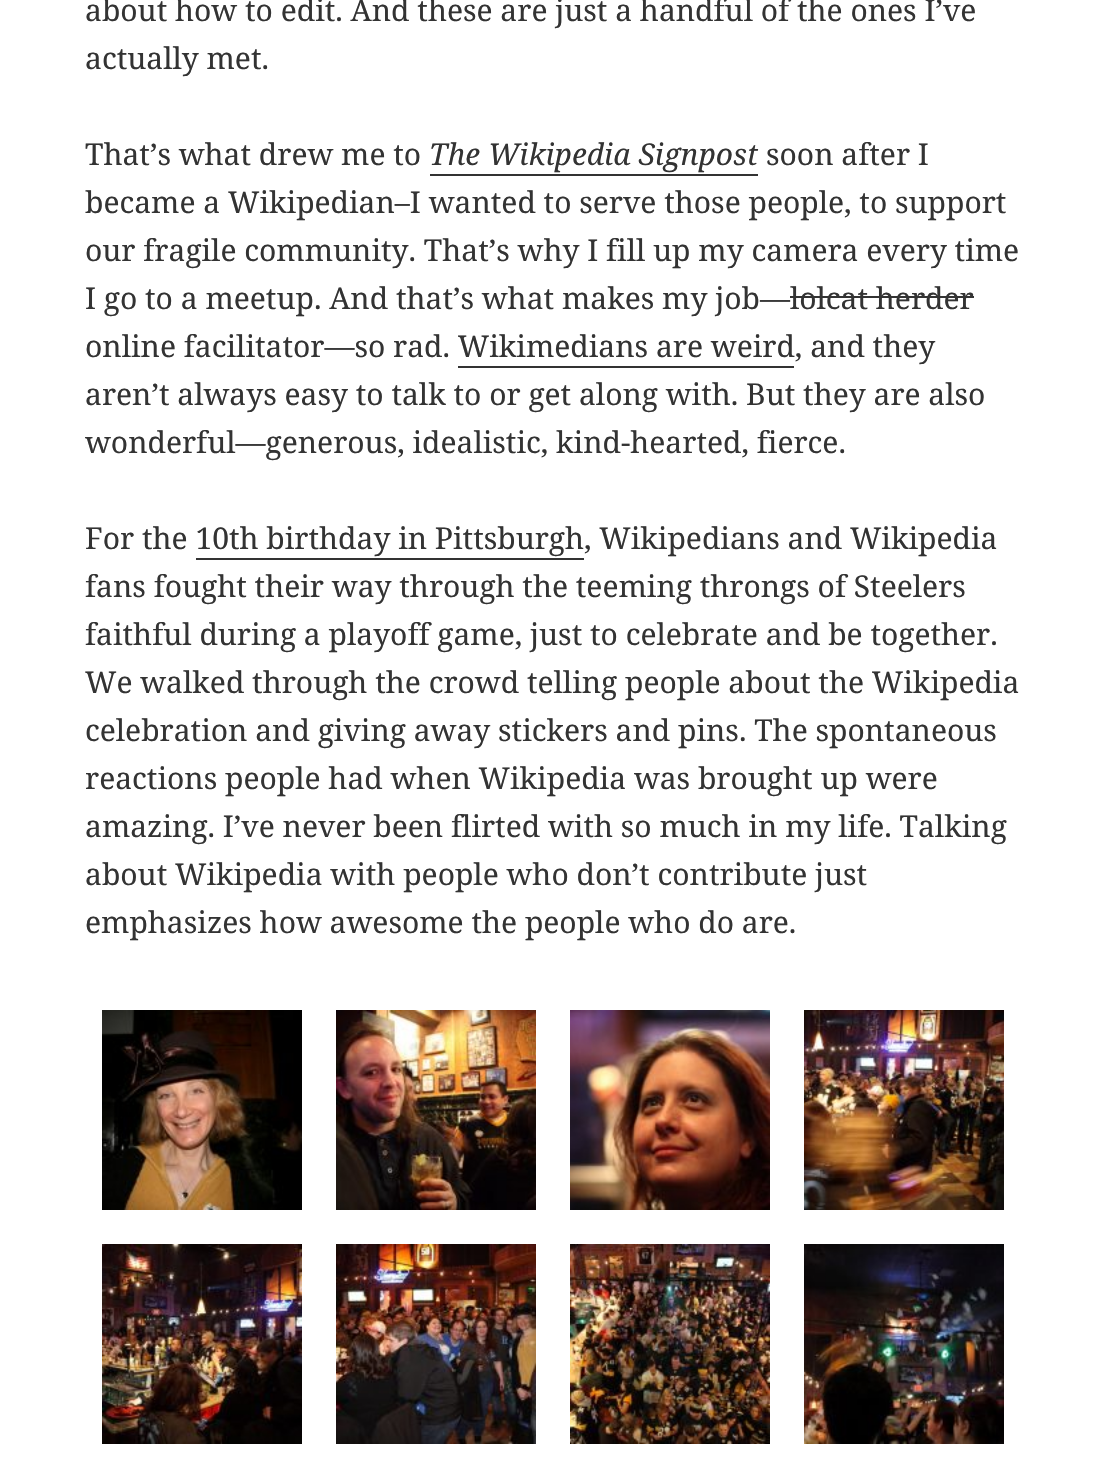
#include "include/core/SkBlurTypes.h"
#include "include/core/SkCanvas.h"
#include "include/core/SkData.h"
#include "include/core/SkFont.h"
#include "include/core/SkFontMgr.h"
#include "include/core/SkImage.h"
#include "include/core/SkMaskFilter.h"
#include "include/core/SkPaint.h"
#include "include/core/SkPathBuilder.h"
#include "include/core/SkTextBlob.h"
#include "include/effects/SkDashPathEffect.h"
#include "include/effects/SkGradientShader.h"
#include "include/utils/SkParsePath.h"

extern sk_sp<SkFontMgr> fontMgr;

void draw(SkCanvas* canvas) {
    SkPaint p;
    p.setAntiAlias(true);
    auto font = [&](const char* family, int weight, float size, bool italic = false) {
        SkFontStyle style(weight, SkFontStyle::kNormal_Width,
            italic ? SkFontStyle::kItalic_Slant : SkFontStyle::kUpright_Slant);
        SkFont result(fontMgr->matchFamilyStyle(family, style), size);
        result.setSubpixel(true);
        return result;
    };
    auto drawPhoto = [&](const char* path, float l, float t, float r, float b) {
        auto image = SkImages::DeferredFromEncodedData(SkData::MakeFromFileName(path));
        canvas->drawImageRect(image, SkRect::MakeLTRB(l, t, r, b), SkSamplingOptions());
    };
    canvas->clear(0xFFFFFFFF);
    auto font1 = font("Noto Serif", 400, 30);
    p.setColor(0xFF333333);
    {
        const struct { const char* s; float x, y; } items[] = {
            {"about how to edit. And these are just a handful of the ones I’ve", 85, 21},
            {"actually met.", 85, 69},
            {"That’s what drew me to", 85, 165},
        };
        for (auto [s, x, y] : items) {
            canvas->drawString(s, x, y, font1, p);
        }
    }
    auto font2 = font("Noto Serif", 400, 30, true);
    canvas->drawString("The Wikipedia Signpost", 429, 165, font2, p);
    canvas->drawRect(SkRect::MakeLTRB(430, 174, 758, 176), p);
    {
        const struct { const char* s; float x, y; } items[] = {
            {"soon after I", 766, 165},
            {"became a Wikipedian–I wanted to serve those people, to support", 85, 213},
            {"our fragile community. That’s why I fill up my camera every time", 85, 261},
            {"I go to a meetup. And that’s what makes my job—lolcat herder", 85, 309},
        };
        for (auto [s, x, y] : items) {
            canvas->drawString(s, x, y, font1, p);
        }
    }
    canvas->drawRect(SkRect::MakeLTRB(790, 296, 974, 298), p);
    canvas->drawString("online facilitator—so rad. Wikimedians are weird, and they", 85, 357, font1, p);
    canvas->drawRect(SkRect::MakeLTRB(458, 366, 794, 368), p);
    {
        const struct { const char* s; float x, y; } items[] = {
            {"aren’t always easy to talk to or get along with. But they are also", 85, 405},
            {"wonderful—generous, idealistic, kind-hearted, fierce.", 85, 453},
            {"For the 10th birthday in Pittsburgh, Wikipedians and Wikipedia", 85, 549},
        };
        for (auto [s, x, y] : items) {
            canvas->drawString(s, x, y, font1, p);
        }
    }
    canvas->drawRect(SkRect::MakeLTRB(196, 558, 584, 560), p);
    {
        const struct { const char* s; float x, y; } items[] = {
            {"fans fought their way through the teeming throngs of Steelers", 85, 597},
            {"faithful during a playoff game, just to celebrate and be together.", 85, 645},
            {"We walked through the crowd telling people about the Wikipedia", 85, 693},
            {"celebration and giving away stickers and pins. The spontaneous", 85, 741},
            {"reactions people had when Wikipedia was brought up were", 85, 789},
            {"amazing. I’ve never been flirted with so much in my life. Talking", 85, 837},
            {"about Wikipedia with people who don’t contribute just", 85, 885},
            {"emphasizes how awesome the people who do are.", 85, 933},
        };
        for (auto [s, x, y] : items) {
            canvas->drawString(s, x, y, font1, p);
        }
    }
    drawPhoto("media/1.png", 102, 1010, 302, 1210);
    drawPhoto("media/2.png", 336, 1010, 536, 1210);
    drawPhoto("media/3.png", 570, 1010, 770, 1210);
    drawPhoto("media/4.png", 804, 1010, 1004, 1210);
    drawPhoto("media/5.png", 102, 1244, 302, 1444);
    drawPhoto("media/6.png", 336, 1244, 536, 1444);
    drawPhoto("media/7.png", 570, 1244, 770, 1444);
    drawPhoto("media/8.png", 804, 1244, 1004, 1444);
}
